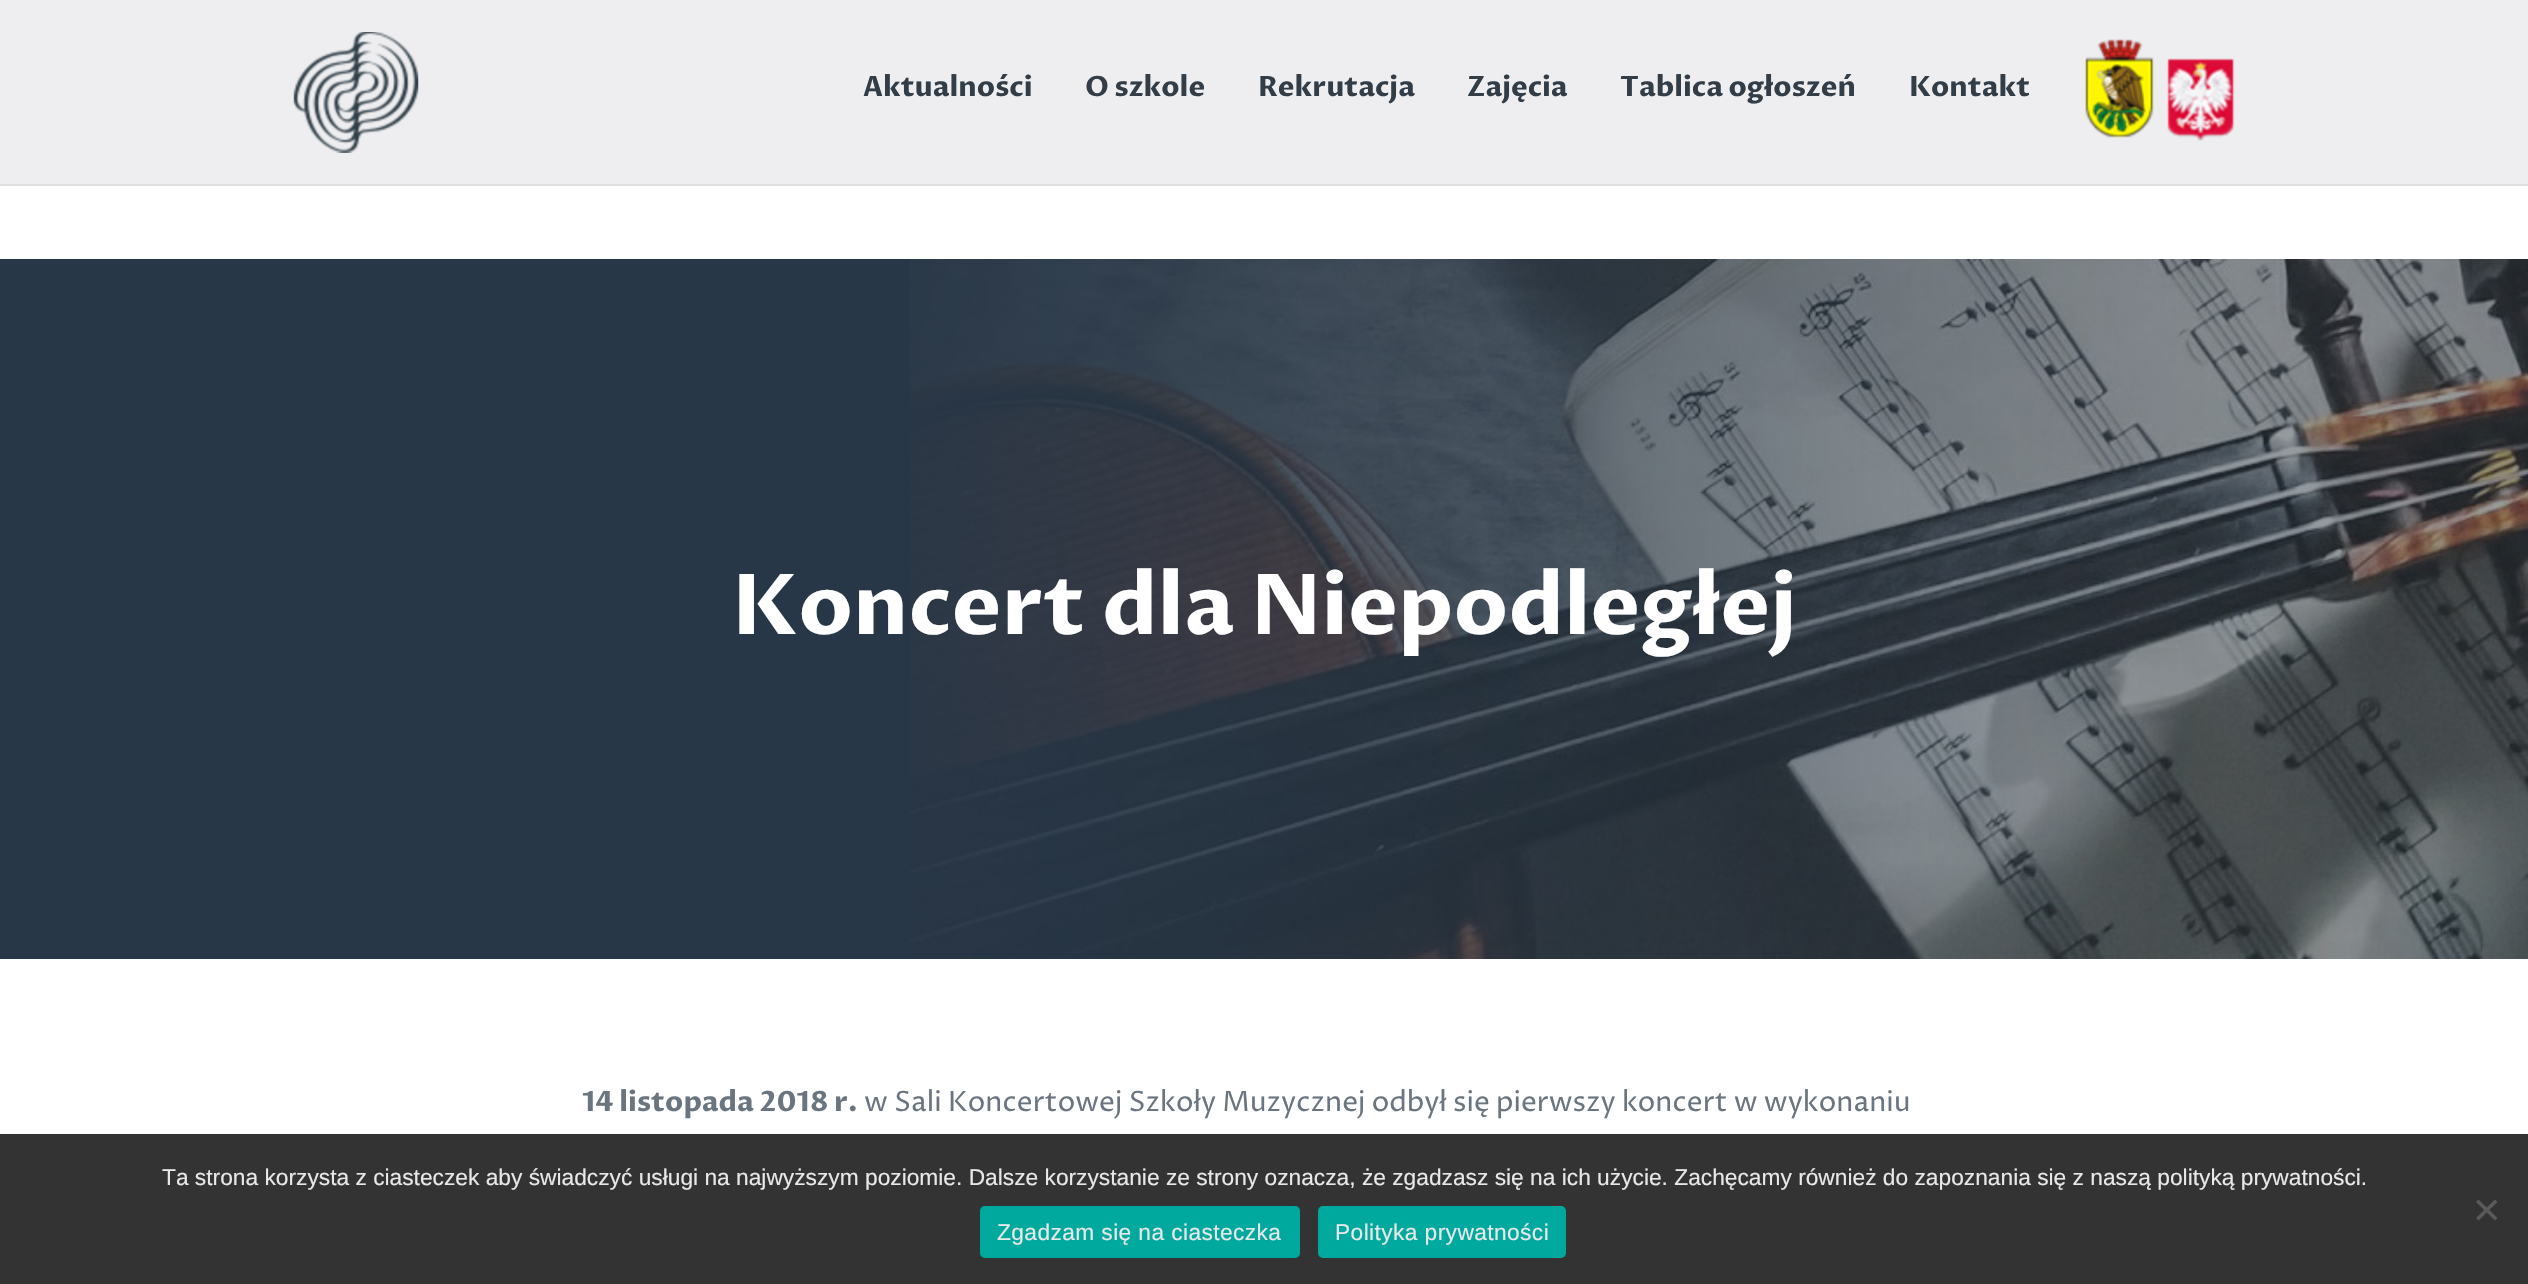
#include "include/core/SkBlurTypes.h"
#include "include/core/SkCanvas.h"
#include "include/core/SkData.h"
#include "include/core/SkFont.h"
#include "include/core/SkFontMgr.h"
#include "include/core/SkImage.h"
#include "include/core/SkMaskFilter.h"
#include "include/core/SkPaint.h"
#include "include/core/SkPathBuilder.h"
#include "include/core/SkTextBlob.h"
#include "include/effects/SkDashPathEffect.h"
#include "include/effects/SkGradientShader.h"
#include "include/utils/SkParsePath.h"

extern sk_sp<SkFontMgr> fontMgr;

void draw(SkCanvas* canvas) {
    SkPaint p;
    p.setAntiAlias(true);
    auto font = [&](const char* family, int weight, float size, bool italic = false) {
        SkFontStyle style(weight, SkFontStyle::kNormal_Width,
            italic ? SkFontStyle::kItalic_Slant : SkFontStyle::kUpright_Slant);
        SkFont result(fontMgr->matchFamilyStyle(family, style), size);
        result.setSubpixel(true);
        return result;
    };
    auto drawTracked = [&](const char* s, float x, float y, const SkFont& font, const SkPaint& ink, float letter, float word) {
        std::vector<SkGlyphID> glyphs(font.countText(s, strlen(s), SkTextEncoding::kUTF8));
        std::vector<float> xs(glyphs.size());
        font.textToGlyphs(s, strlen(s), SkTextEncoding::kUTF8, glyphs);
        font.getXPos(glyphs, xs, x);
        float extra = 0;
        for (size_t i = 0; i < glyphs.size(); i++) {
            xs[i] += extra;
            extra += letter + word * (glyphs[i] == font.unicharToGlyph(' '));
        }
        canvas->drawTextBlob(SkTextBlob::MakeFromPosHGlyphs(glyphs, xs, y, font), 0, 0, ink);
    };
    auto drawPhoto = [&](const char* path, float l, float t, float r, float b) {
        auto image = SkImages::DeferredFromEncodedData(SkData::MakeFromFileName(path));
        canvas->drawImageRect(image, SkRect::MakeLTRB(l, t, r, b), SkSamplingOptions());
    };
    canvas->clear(0xFFFFFFFF);
    p.setColor(0xFFEEEEF0);
    canvas->drawRect(SkRect::MakeLTRB(0, 0, 2528, 184), p);
    p.setColor(0xFFE0E0E0);
    canvas->drawRect(SkRect::MakeLTRB(0, 184, 2528, 186), p);
    drawPhoto("media/1.png", 293, 32, 419, 153);
    auto font1 = font("Proza Libre", 700, 28);
    p.setColor(0xFF333D47);
    {
        const struct { const char* s; float x, y; } items[] = {
            {"Aktualności", 863, 96},
            {"O szkole", 1085, 96},
            {"Rekrutacja", 1258, 96},
            {"Zajęcia", 1467, 96},
            {"Tablica ogłoszeń", 1620, 96},
            {"Kontakt", 1909, 96},
        };
        for (auto [s, x, y] : items) {
            canvas->drawString(s, x, y, font1, p);
        }
    }
    drawPhoto("media/2.png", 2085, 39, 2154, 138);
    drawPhoto("media/3.png", 2167, 58, 2235, 141);
    p.setColor(0xFF283747);
    canvas->drawRect(SkRect::MakeLTRB(0, 259, 910, 959), p);
    drawPhoto("media/4.png", 910, 259, 2528, 959);
    auto font2 = font("Proza Libre", 700, 84);
    p.setColor(0xFFFFFFFF);
    canvas->drawString("Koncert dla Niepodległej", 732, 634, font2, p);
    p.setColor(0xFF6A7580);
    canvas->drawString("14 listopada 2018 r.", 582, 1111, font1, p);
    auto font3 = font("Proza Libre", 400, 28);
    canvas->drawString("w Sali Koncertowej Szkoły Muzycznej odbył się pierwszy koncert w wykonaniu", 864, 1111, font3, p);
    p.setColor(0xFF333333);
    canvas->drawRect(SkRect::MakeLTRB(0, 1134, 2528, 1284), p);
    auto font4 = font("Liberation Sans", 400, 22.75f);
    p.setColor(0xFFE8E8E8);
    canvas->drawString("Ta strona korzysta z ciasteczek aby świadczyć usługi na najwyższym poziomie. Dalsze korzystanie ze strony oznacza, że zgadzasz się na ich użycie. Zachęcamy również do zapoznania się z naszą polityką prywatności.", 162, 1185, font4, p);
    p.setColor(0xFF5A5A5A);
    canvas->drawPath(SkPathBuilder().moveTo(2495, 1199.5f).lineTo(2497.5f, 1202).lineTo(2478.5f, 1220.5f).lineTo(2476, 1218).close().detach(), p);
    canvas->drawPath(SkPathBuilder().moveTo(2476, 1202).lineTo(2478.5f, 1199.5f).lineTo(2497.5f, 1218).lineTo(2495, 1220.5f).close().detach(), p);
    p.setColor(0xFF00A99D);
    canvas->drawRoundRect(SkRect::MakeLTRB(980, 1206, 1300, 1258), 5, 5, p);
    p.setColor(0xFFE8E8E8);
    drawTracked("Zgadzam się na ciasteczka", 997, 1240, font4, p, 0.4f, 0);
    p.setColor(0xFF00A99D);
    canvas->drawRoundRect(SkRect::MakeLTRB(1318, 1206, 1566, 1258), 5, 5, p);
    p.setColor(0xFFE8E8E8);
    drawTracked("Polityka prywatności", 1335, 1240, font4, p, 0.4f, 0);
}
